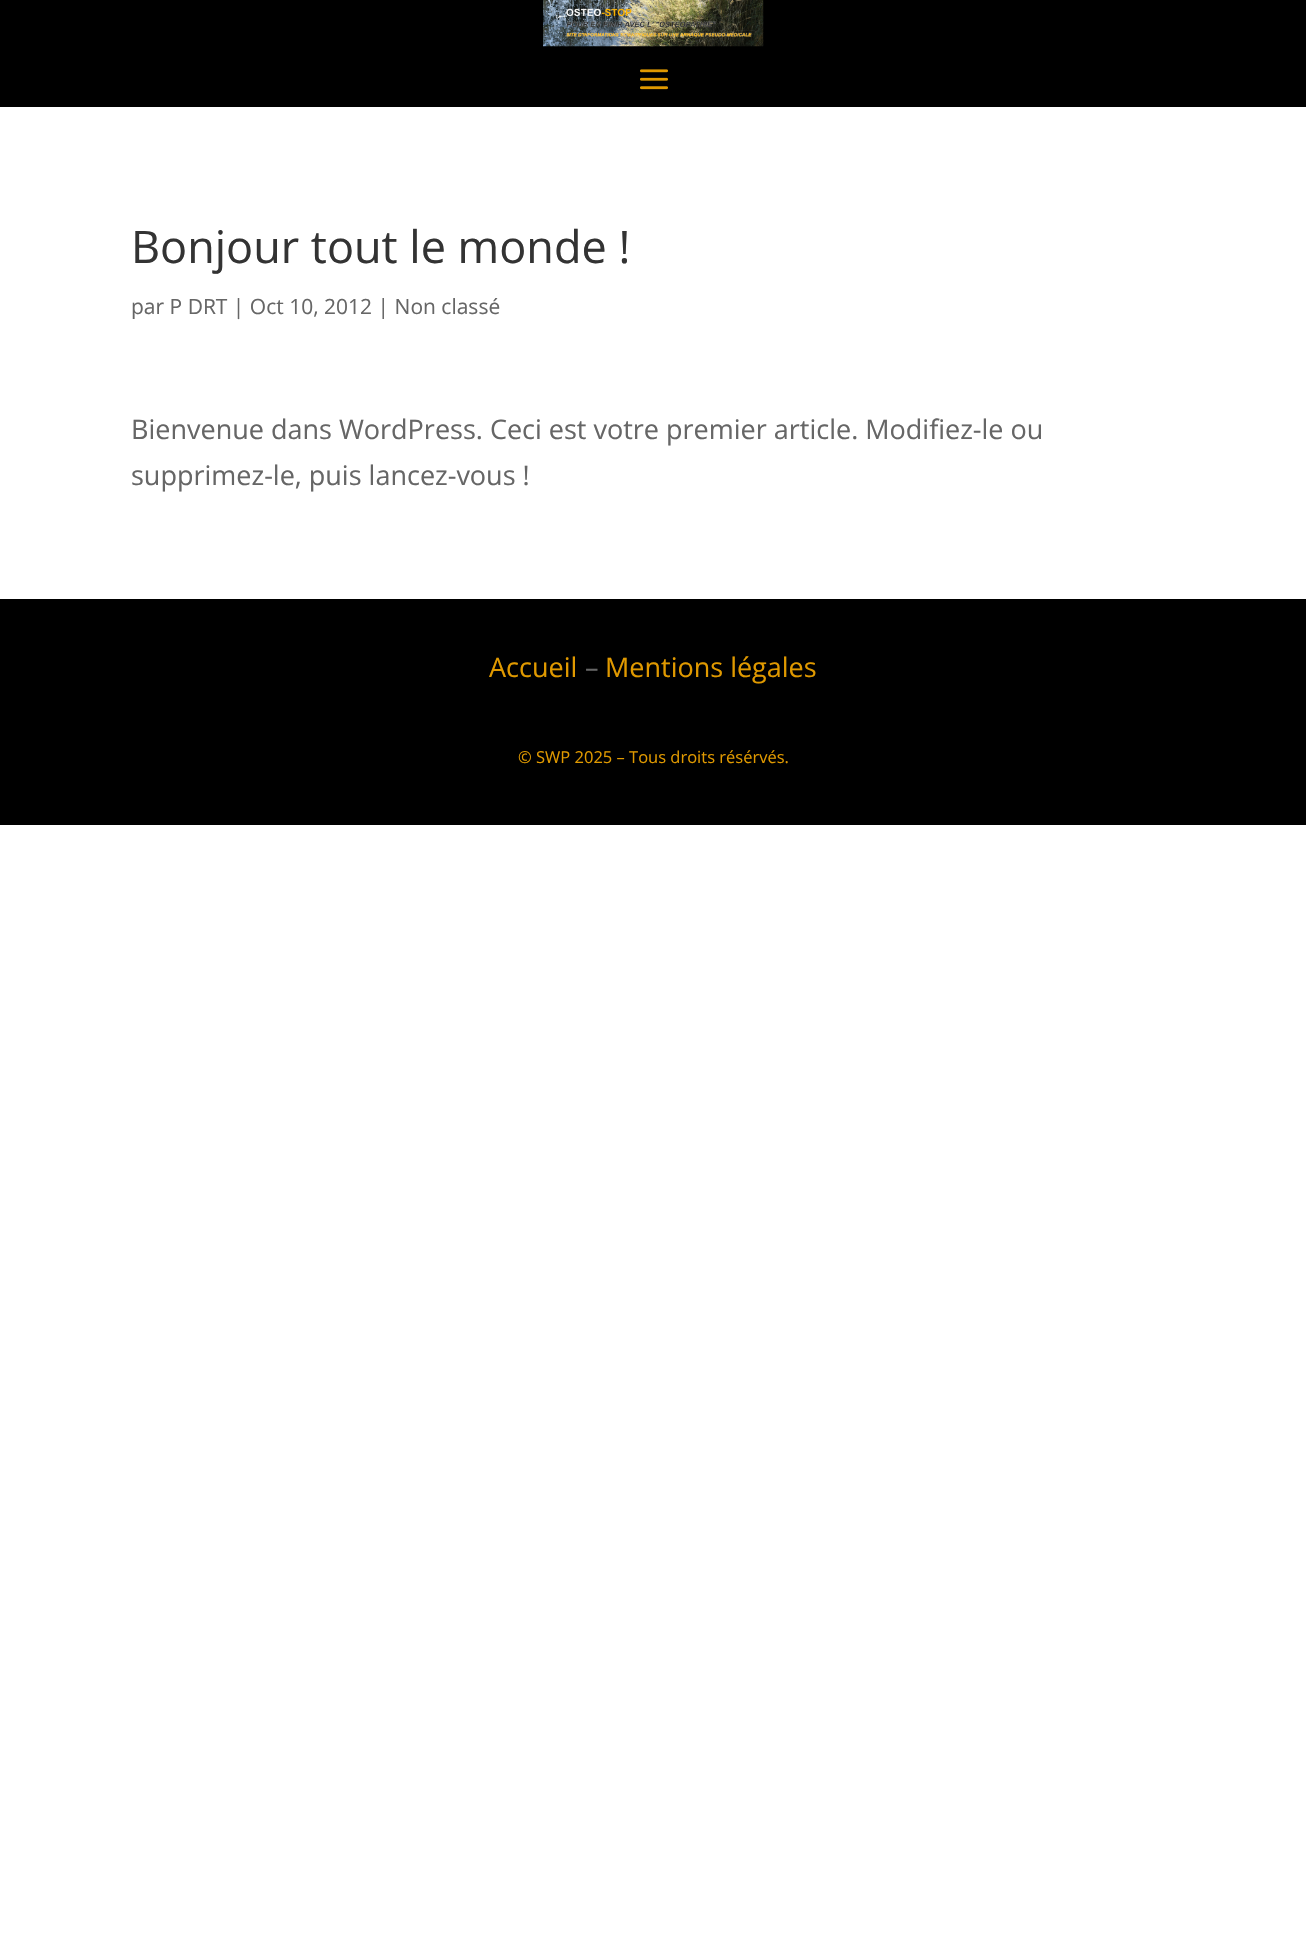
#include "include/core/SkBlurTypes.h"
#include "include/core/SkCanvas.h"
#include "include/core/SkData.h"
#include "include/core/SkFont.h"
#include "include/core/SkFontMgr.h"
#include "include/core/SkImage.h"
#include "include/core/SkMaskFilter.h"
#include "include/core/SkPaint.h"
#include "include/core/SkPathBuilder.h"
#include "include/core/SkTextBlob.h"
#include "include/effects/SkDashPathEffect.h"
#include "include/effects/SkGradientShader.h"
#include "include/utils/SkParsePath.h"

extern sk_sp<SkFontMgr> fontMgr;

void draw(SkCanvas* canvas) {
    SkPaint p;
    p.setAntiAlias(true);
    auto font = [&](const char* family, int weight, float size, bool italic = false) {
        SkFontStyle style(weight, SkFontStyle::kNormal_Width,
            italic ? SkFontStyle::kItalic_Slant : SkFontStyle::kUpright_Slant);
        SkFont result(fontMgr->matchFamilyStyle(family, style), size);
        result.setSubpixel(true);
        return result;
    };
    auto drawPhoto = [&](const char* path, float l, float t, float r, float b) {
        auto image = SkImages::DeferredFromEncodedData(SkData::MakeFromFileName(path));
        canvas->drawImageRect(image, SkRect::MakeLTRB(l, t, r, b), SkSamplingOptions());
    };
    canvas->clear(0xFFFFFFFF);
    p.setColor(0xFF000000);
    canvas->drawRect(SkRect::MakeLTRB(0, 0, 1306, 107), p);
    drawPhoto("media/1.png", 543, 0, 764, 47);
    drawPhoto("media/2.png", 640, 69, 668, 90);
    auto font1 = font("Open Sans", 400, 45);
    p.setColor(0xFF333333);
    canvas->drawString("Bonjour tout le monde !", 131, 263, font1, p);
    auto font2 = font("Open Sans", 400, 21);
    p.setColor(0xFF666666);
    canvas->drawString("par P DRT | Oct 10, 2012 | Non classé", 131, 314, font2, p);
    auto font3 = font("Open Sans", 400, 27);
    canvas->drawString("Bienvenue dans WordPress. Ceci est votre premier article. Modifiez-le ou", 131, 439, font3, p);
    canvas->drawString("supprimez-le, puis lancez-vous !", 131, 485, font3, p);
    p.setColor(0xFF000000);
    canvas->drawRect(SkRect::MakeLTRB(0, 599, 1306, 825), p);
    p.setColor(0xFFE09900);
    canvas->drawString("Accueil", 489, 677, font3, p);
    p.setColor(0xFF666666);
    canvas->drawString("–", 585, 677, font3, p);
    p.setColor(0xFFE09900);
    canvas->drawString("Mentions légales", 605, 677, font3, p);
    auto font4 = font("Open Sans", 400, 16.5f);
    canvas->drawString("© SWP 2025 – Tous droits résérvés.", 518, 763, font4, p);
}
